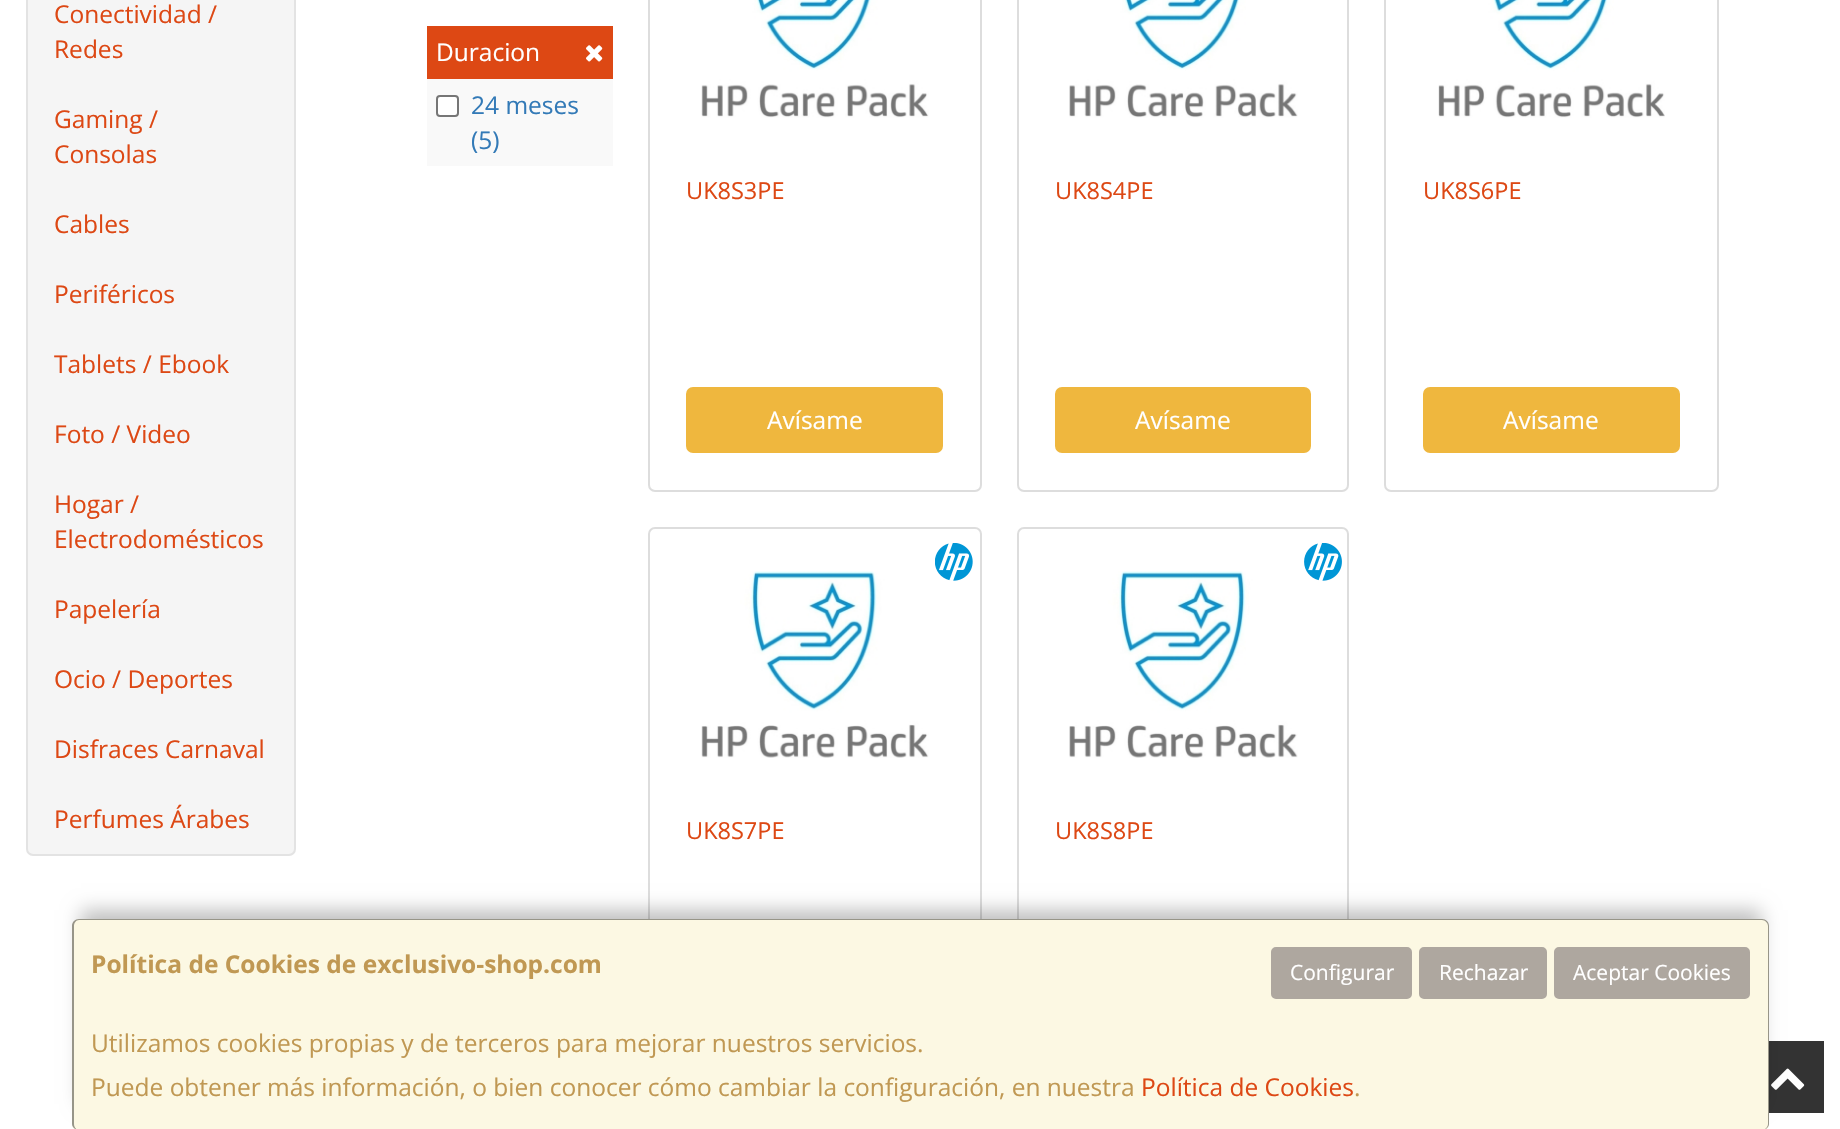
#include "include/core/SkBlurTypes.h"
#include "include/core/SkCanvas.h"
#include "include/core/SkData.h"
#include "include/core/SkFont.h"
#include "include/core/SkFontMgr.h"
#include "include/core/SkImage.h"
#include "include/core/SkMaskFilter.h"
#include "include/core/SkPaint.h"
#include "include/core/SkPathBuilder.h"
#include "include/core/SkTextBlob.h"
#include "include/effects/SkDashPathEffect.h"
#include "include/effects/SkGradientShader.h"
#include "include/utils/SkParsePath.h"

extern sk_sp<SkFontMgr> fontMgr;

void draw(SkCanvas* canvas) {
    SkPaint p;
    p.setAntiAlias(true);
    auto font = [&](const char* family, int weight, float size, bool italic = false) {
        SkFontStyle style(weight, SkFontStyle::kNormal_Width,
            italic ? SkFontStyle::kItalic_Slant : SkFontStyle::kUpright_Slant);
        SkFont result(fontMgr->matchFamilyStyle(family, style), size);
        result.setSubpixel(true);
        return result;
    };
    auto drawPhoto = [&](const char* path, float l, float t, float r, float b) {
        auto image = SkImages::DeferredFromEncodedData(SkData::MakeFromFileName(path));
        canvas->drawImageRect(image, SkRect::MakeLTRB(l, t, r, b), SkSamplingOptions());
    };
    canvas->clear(0xFFFFFFFF);
    p.setColor(0xFFF5F5F5);
    canvas->drawRoundRect(SkRect::MakeLTRB(27, -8, 295, 855), 6, 6, p);
    p.setStyle(SkPaint::kStroke_Style);
    p.setStrokeWidth(2);
    p.setColor(0xFFE3E3E3);
    canvas->drawRoundRect(SkRect::MakeLTRB(27, -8, 295, 855), 6, 6, p);
    auto font1 = font("Open Sans", 400, 24.5f);
    p.setStyle(SkPaint::kFill_Style);
    p.setColor(0xFFDD4814);
    {
        const struct { const char* s; float x, y; } items[] = {
            {"Conectividad /", 54, 23},
            {"Redes", 54, 58},
            {"Gaming /", 54, 128},
            {"Consolas", 54, 163},
            {"Cables", 54, 233},
            {"Periféricos", 54, 303},
            {"Tablets / Ebook", 54, 373},
            {"Foto / Video", 54, 443},
            {"Hogar /", 54, 513},
            {"Electrodomésticos", 54, 548},
            {"Papelería", 54, 618},
            {"Ocio / Deportes", 54, 688},
            {"Disfraces Carnaval", 54, 758},
            {"Perfumes Árabes", 54, 828},
        };
        for (auto [s, x, y] : items) {
            canvas->drawString(s, x, y, font1, p);
        }
    }
    canvas->drawRect(SkRect::MakeLTRB(427, 26, 613, 79), p);
    p.setColor(0xFFFFFFFF);
    canvas->drawString("Duracion", 436, 61, font1, p);
    drawPhoto("media/1.png", 586, 45, 603, 62);
    p.setColor(0xFFF9F9F9);
    canvas->drawRect(SkRect::MakeLTRB(427, 79, 613, 166), p);
    p.setColor(0xFFFFFFFF);
    canvas->drawRoundRect(SkRect::MakeLTRB(437, 96, 458, 116), 3, 3, p);
    p.setStyle(SkPaint::kStroke_Style);
    p.setColor(0xFF767676);
    canvas->drawRoundRect(SkRect::MakeLTRB(437, 96, 458, 116), 3, 3, p);
    p.setStyle(SkPaint::kFill_Style);
    p.setColor(0xFF337AB7);
    canvas->drawString("24 meses", 471, 114, font1, p);
    canvas->drawString("(5)", 471, 149, font1, p);
    p.setStyle(SkPaint::kStroke_Style);
    p.setColor(0xFFDDDDDD);
    canvas->drawRoundRect(SkRect::MakeLTRB(649, -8, 981, 491), 6, 6, p);
    drawPhoto("media/2.png", 701, 0, 929, 118);
    auto font2 = font("Open Sans", 400, 23.5f);
    p.setStyle(SkPaint::kFill_Style);
    p.setColor(0xFFDD4814);
    canvas->drawString("UK8S3PE", 686, 199, font2, p);
    p.setColor(0xFFEFB73E);
    canvas->drawRoundRect(SkRect::MakeLTRB(687, 388, 942, 452), 6, 6, p);
    p.setStyle(SkPaint::kStroke_Style);
    canvas->drawRoundRect(SkRect::MakeLTRB(687, 388, 942, 452), 6, 6, p);
    p.setStyle(SkPaint::kFill_Style);
    p.setColor(0xFFFFFFFF);
    canvas->drawString("Avísame", 767, 429, font1, p);
    p.setStyle(SkPaint::kStroke_Style);
    p.setColor(0xFFDDDDDD);
    canvas->drawRoundRect(SkRect::MakeLTRB(1018, -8, 1348, 491), 6, 6, p);
    drawPhoto("media/3.png", 1069, 0, 1298, 118);
    p.setStyle(SkPaint::kFill_Style);
    p.setColor(0xFFDD4814);
    canvas->drawString("UK8S4PE", 1055, 199, font2, p);
    p.setColor(0xFFEFB73E);
    canvas->drawRoundRect(SkRect::MakeLTRB(1056, 388, 1310, 452), 6, 6, p);
    p.setStyle(SkPaint::kStroke_Style);
    canvas->drawRoundRect(SkRect::MakeLTRB(1056, 388, 1310, 452), 6, 6, p);
    p.setStyle(SkPaint::kFill_Style);
    p.setColor(0xFFFFFFFF);
    canvas->drawString("Avísame", 1135, 429, font1, p);
    p.setStyle(SkPaint::kStroke_Style);
    p.setColor(0xFFDDDDDD);
    canvas->drawRoundRect(SkRect::MakeLTRB(1385, -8, 1718, 491), 6, 6, p);
    drawPhoto("media/4.png", 1438, 0, 1665, 118);
    p.setStyle(SkPaint::kFill_Style);
    p.setColor(0xFFDD4814);
    canvas->drawString("UK8S6PE", 1423, 199, font2, p);
    p.setColor(0xFFEFB73E);
    canvas->drawRoundRect(SkRect::MakeLTRB(1424, 388, 1679, 452), 6, 6, p);
    p.setStyle(SkPaint::kStroke_Style);
    canvas->drawRoundRect(SkRect::MakeLTRB(1424, 388, 1679, 452), 6, 6, p);
    p.setStyle(SkPaint::kFill_Style);
    p.setColor(0xFFFFFFFF);
    canvas->drawString("Avísame", 1503, 429, font1, p);
    p.setStyle(SkPaint::kStroke_Style);
    p.setColor(0xFFDDDDDD);
    canvas->drawRoundRect(SkRect::MakeLTRB(649, 528, 981, 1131), 6, 6, p);
    drawPhoto("media/5.png", 935, 543, 973, 581);
    drawPhoto("media/6.png", 701, 571, 929, 758);
    p.setStyle(SkPaint::kFill_Style);
    p.setColor(0xFFDD4814);
    canvas->drawString("UK8S7PE", 686, 839, font2, p);
    p.setStyle(SkPaint::kStroke_Style);
    p.setColor(0xFFDDDDDD);
    canvas->drawRoundRect(SkRect::MakeLTRB(1018, 528, 1348, 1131), 6, 6, p);
    drawPhoto("media/7.png", 1304, 543, 1342, 581);
    drawPhoto("media/8.png", 1069, 571, 1298, 758);
    p.setStyle(SkPaint::kFill_Style);
    p.setColor(0xFFDD4814);
    canvas->drawString("UK8S8PE", 1055, 839, font2, p);
    p.setColor(0xFF333333);
    canvas->drawRect(SkRect::MakeLTRB(1769, 1041, 1824, 1113), p);
    drawPhoto("media/9.png", 1771, 1068, 1805, 1090);
    p.setColor(0x40000000);
    p.setMaskFilter(SkMaskFilter::MakeBlur(kNormal_SkBlurStyle, 9));
    canvas->drawRect(SkRect::MakeLTRB(81, 910, 1761, 1104), p);
    p.setMaskFilter(nullptr);
    p.setColor(0xFFFCF8E3);
    canvas->drawRoundRect(SkRect::MakeLTRB(72, 919, 1769, 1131), 7, 7, p);
    p.setColor(0x66000000);
    canvas->drawPath(SkPathBuilder(SkPathFillType::kEvenOdd).moveTo(79, 919).lineTo(1762, 919).cubicTo(1766, 919, 1769, 922, 1769, 926).lineTo(1769, 1124).cubicTo(1769, 1127, 1766, 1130, 1762, 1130).lineTo(79, 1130).cubicTo(75, 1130, 72, 1127, 72, 1124).lineTo(72, 926).cubicTo(72, 922, 75, 919, 79, 919).close().moveTo(79, 920).lineTo(1762, 920).cubicTo(1765, 920, 1768, 923, 1768, 926).lineTo(1768, 1124).cubicTo(1768, 1127, 1765, 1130, 1762, 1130).lineTo(79, 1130).cubicTo(76, 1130, 74, 1127, 74, 1124).lineTo(74, 926).cubicTo(74, 923, 76, 920, 79, 920).close().detach(), p);
    auto font3 = font("Open Sans", 700, 24.5f);
    p.setColor(0xFFC09853);
    canvas->drawString("Política de Cookies de exclusivo-shop.com", 91, 973, font3, p);
    p.setColor(0xFFAEA79F);
    canvas->drawRoundRect(SkRect::MakeLTRB(1272, 948, 1411, 998), 4, 4, p);
    p.setStyle(SkPaint::kStroke_Style);
    canvas->drawRoundRect(SkRect::MakeLTRB(1272, 948, 1411, 998), 4, 4, p);
    auto font4 = font("Open Sans", 400, 21);
    p.setStyle(SkPaint::kFill_Style);
    p.setColor(0xFFFFFFFF);
    canvas->drawString("Configurar", 1290, 980, font4, p);
    p.setColor(0xFFAEA79F);
    canvas->drawRoundRect(SkRect::MakeLTRB(1420, 948, 1546, 998), 4, 4, p);
    p.setStyle(SkPaint::kStroke_Style);
    canvas->drawRoundRect(SkRect::MakeLTRB(1420, 948, 1546, 998), 4, 4, p);
    p.setStyle(SkPaint::kFill_Style);
    p.setColor(0xFFFFFFFF);
    canvas->drawString("Rechazar", 1439, 980, font4, p);
    p.setColor(0xFFAEA79F);
    canvas->drawRoundRect(SkRect::MakeLTRB(1555, 948, 1749, 998), 4, 4, p);
    p.setStyle(SkPaint::kStroke_Style);
    canvas->drawRoundRect(SkRect::MakeLTRB(1555, 948, 1749, 998), 4, 4, p);
    p.setStyle(SkPaint::kFill_Style);
    p.setColor(0xFFFFFFFF);
    canvas->drawString("Aceptar Cookies", 1573, 980, font4, p);
    p.setColor(0xFFC09853);
    canvas->drawString("Utilizamos cookies propias y de terceros para mejorar nuestros servicios.", 91, 1052, font1, p);
    canvas->drawString("Puede obtener más información, o bien conocer cómo cambiar la configuración, en nuestra", 91, 1096, font1, p);
    p.setColor(0xFFDD4814);
    canvas->drawString("Política de Cookies", 1141, 1096, font1, p);
    p.setColor(0xFFC09853);
    canvas->drawString(".", 1354, 1096, font1, p);
}
